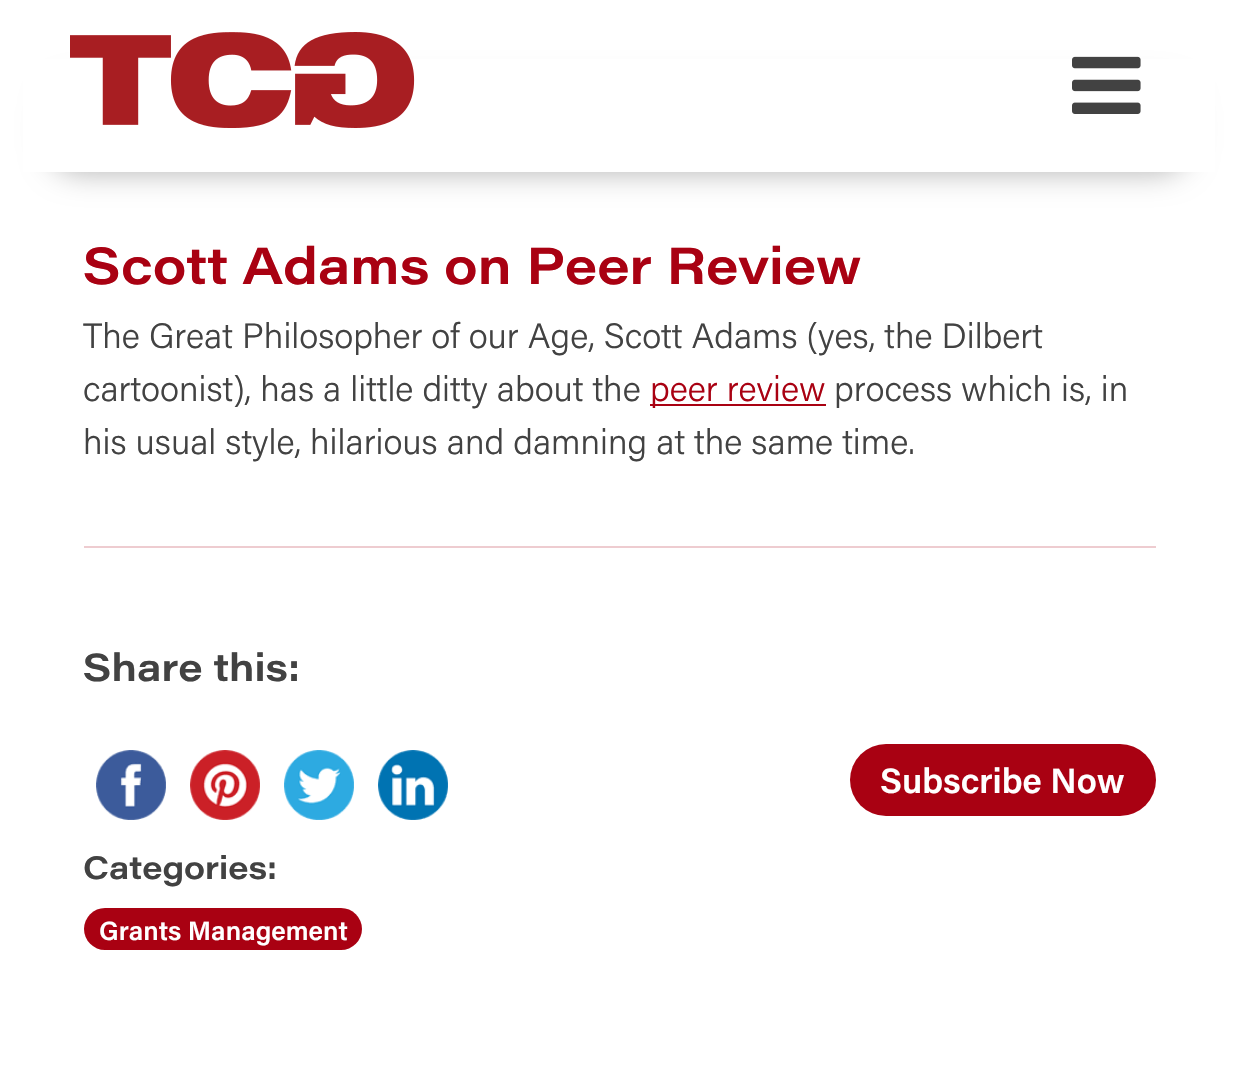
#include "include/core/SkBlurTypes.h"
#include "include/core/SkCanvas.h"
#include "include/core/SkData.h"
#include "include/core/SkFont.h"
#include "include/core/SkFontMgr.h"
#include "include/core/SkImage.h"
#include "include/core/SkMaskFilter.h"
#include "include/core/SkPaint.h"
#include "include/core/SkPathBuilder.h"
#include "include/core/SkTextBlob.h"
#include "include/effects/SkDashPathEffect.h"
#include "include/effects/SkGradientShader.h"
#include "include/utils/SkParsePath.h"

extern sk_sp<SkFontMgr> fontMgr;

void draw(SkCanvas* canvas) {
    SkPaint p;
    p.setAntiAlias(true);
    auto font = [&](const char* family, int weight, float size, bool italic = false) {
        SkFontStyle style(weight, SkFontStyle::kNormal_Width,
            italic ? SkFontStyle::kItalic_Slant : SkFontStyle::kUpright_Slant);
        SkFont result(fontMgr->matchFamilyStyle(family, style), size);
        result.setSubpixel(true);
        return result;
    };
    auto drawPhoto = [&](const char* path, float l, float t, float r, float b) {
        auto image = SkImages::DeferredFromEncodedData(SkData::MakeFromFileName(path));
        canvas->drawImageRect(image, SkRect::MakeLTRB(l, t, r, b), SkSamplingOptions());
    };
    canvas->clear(0xFFFFFFFF);
    p.setColor(0x4D000000);
    p.setMaskFilter(SkMaskFilter::MakeBlur(kNormal_SkBlurStyle, 15));
    canvas->drawRoundRect(SkRect::MakeLTRB(50, 86, 1188, 172), 30, 30, p);
    p.setMaskFilter(nullptr);
    p.setColor(0xFFFFFFFF);
    canvas->drawRect(SkRect::MakeLTRB(23, 59, 1215, 172), p);
    drawPhoto("media/1.png", 70, 32, 415, 128);
    drawPhoto("media/2.png", 1072, 56, 1141, 114);
    auto font1 = font("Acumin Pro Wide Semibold", 600, 51.25f);
    p.setColor(0xFFA90112);
    canvas->drawString("Scott Adams on Peer Review", 83, 284, font1, p);
    auto font2 = font("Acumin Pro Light", 300, 35.2f);
    p.setColor(0xFF424242);
    canvas->drawString("The Great Philosopher of our Age, Scott Adams (yes, the Dilbert", 83, 348, font2, p);
    canvas->drawString("cartoonist), has a little ditty about the", 83, 401, font2, p);
    p.setColor(0xFFA90112);
    canvas->drawRect(SkRect::MakeLTRB(650, 404, 826, 406), p);
    canvas->drawString("peer review", 650, 401, font2, p);
    p.setColor(0xFF424242);
    canvas->drawString("process which is, in", 834, 401, font2, p);
    canvas->drawString("his usual style, hilarious and damning at the same time.", 83, 454, font2, p);
    p.setColor(0xFFEECCD0);
    canvas->drawRect(SkRect::MakeLTRB(84, 546, 1156, 548), p);
    auto font3 = font("Acumin Pro Wide Semibold", 600, 38.5f);
    p.setColor(0xFF424242);
    canvas->drawString("Share this:", 83, 681, font3, p);
    drawPhoto("media/3.png", 96, 750, 166, 820);
    drawPhoto("media/4.png", 190, 750, 260, 820);
    drawPhoto("media/5.png", 284, 750, 354, 820);
    drawPhoto("media/6.png", 378, 750, 448, 820);
    p.setColor(0xFFA90112);
    canvas->drawRoundRect(SkRect::MakeLTRB(850, 744, 1156, 816), 36, 36, p);
    auto font4 = font("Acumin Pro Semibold", 600, 35.2f);
    p.setColor(0xFFFFFFFF);
    canvas->drawString("Subscribe Now", 880, 793, font4, p);
    auto font5 = font("Acumin Pro Wide Semibold", 600, 32);
    p.setColor(0xFF424242);
    canvas->drawString("Categories:", 83, 879, font5, p);
    p.setColor(0xFFA90112);
    canvas->drawRoundRect(SkRect::MakeLTRB(84, 908, 362, 950), 21, 21, p);
    auto font6 = font("Acumin Pro Semibold", 600, 26.5f);
    p.setColor(0xFFFFFFFF);
    canvas->drawString("Grants Management", 99, 940, font6, p);
}
